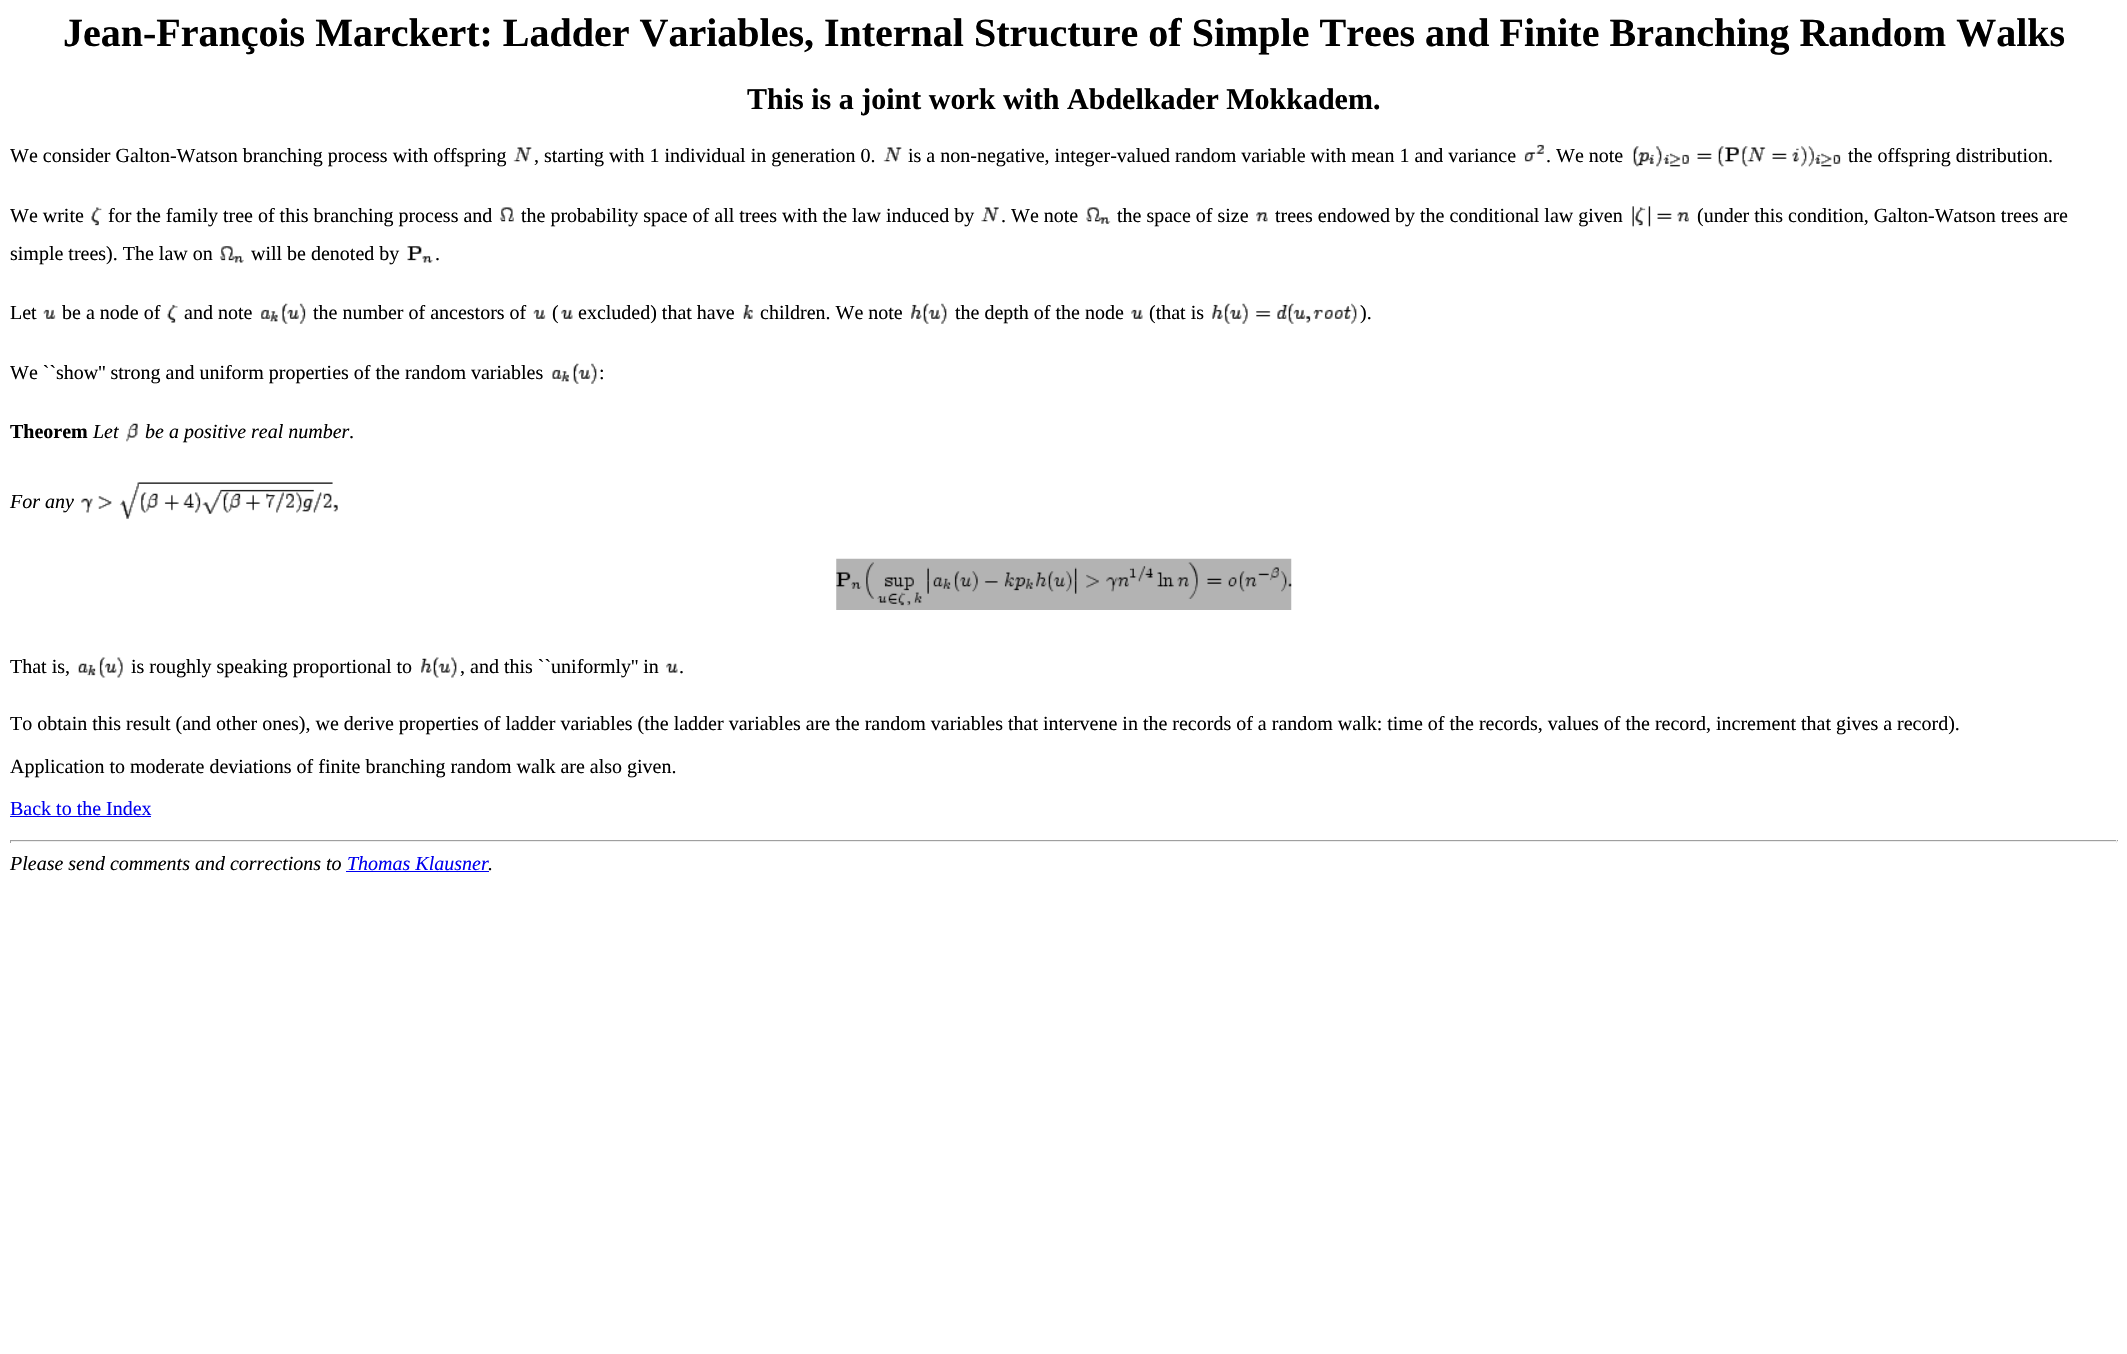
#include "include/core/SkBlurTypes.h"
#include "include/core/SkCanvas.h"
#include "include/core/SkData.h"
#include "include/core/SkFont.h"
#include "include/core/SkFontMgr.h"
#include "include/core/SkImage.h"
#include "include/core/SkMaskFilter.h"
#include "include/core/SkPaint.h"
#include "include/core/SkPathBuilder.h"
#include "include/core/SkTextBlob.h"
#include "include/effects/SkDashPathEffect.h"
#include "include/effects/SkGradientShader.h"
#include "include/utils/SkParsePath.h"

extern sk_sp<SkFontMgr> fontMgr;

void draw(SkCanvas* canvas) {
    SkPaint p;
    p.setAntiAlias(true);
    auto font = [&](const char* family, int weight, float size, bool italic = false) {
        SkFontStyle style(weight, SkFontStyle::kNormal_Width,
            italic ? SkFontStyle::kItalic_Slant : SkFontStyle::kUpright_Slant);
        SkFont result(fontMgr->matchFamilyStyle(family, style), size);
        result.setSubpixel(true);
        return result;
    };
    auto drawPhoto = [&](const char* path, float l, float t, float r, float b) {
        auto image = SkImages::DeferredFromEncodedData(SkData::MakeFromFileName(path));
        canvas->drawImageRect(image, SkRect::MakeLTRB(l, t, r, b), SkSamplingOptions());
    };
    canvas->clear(0xFFFFFFFF);
    auto font1 = font("Liberation Serif", 700, 40);
    p.setColor(0xFF000000);
    canvas->drawString("Jean-François Marckert: Ladder Variables, Internal Structure of Simple Trees and Finite Branching Random Walks", 63, 46, font1, p);
    auto font2 = font("Liberation Serif", 700, 30);
    canvas->drawString("This is a joint work with Abdelkader Mokkadem.", 747, 109, font2, p);
    auto font3 = font("Liberation Serif", 400, 20);
    canvas->drawString("We consider Galton-Watson branching process with offspring", 10, 162, font3, p);
    drawPhoto("media/1.png", 513, 147, 532, 162);
    canvas->drawString(", starting with 1 individual in generation 0.", 534, 162, font3, p);
    drawPhoto("media/1.png", 883, 147, 902, 162);
    canvas->drawString("is a non-negative, integer-valued random variable with mean 1 and variance", 908, 162, font3, p);
    drawPhoto("media/2.png", 1524, 144, 1544, 162);
    canvas->drawString(". We note", 1546, 162, font3, p);
    drawPhoto("media/3.png", 1633, 146, 1841, 167);
    canvas->drawString("the offspring distribution.", 1848, 162, font3, p);
    canvas->drawString("We write", 10, 222, font3, p);
    drawPhoto("media/4.png", 91, 207, 102, 226);
    canvas->drawString("for the family tree of this branching process and", 108, 222, font3, p);
    drawPhoto("media/5.png", 499, 207, 514, 222);
    canvas->drawString("the probability space of all trees with the law induced by", 521, 222, font3, p);
    drawPhoto("media/6.png", 981, 207, 999, 222);
    canvas->drawString(". We note", 1001, 222, font3, p);
    drawPhoto("media/7.png", 1086, 207, 1111, 224);
    canvas->drawString("the space of size", 1117, 222, font3, p);
    drawPhoto("media/8.png", 1256, 212, 1268, 222);
    canvas->drawString("trees endowed by the conditional law given", 1275, 222, font3, p);
    drawPhoto("media/9.png", 1632, 206, 1689, 227);
    canvas->drawString("(under this condition, Galton-Watson trees are", 1697, 222, font3, p);
    canvas->drawString("simple trees). The law on", 10, 260, font3, p);
    drawPhoto("media/10.png", 219, 246, 244, 263);
    canvas->drawString("will be denoted by", 251, 260, font3, p);
    drawPhoto("media/11.png", 407, 246, 433, 263);
    canvas->drawString(".", 435, 260, font3, p);
    canvas->drawString("Let", 10, 319, font3, p);
    drawPhoto("media/12.png", 43, 309, 56, 319);
    canvas->drawString("be a node of", 62, 319, font3, p);
    drawPhoto("media/13.png", 167, 304, 178, 323);
    canvas->drawString("and note", 184, 319, font3, p);
    drawPhoto("media/14.png", 261, 303, 306, 324);
    canvas->drawString("the number of ancestors of", 313, 319, font3, p);
    drawPhoto("media/12.png", 533, 309, 546, 319);
    canvas->drawString("(", 552, 319, font3, p);
    drawPhoto("media/15.png", 561, 309, 573, 319);
    canvas->drawString("excluded) that have", 578, 319, font3, p);
    drawPhoto("media/16.png", 743, 304, 753, 319);
    canvas->drawString("children. We note", 760, 319, font3, p);
    drawPhoto("media/17.png", 911, 303, 947, 324);
    canvas->drawString("the depth of the node", 955, 319, font3, p);
    drawPhoto("media/15.png", 1131, 309, 1143, 319);
    canvas->drawString("(that is", 1149, 319, font3, p);
    drawPhoto("media/18.png", 1212, 303, 1357, 324);
    canvas->drawString(").", 1360, 319, font3, p);
    canvas->drawString("We ``show'' strong and uniform properties of the random variables", 10, 379, font3, p);
    drawPhoto("media/19.png", 552, 363, 597, 384);
    canvas->drawString(":", 599, 379, font3, p);
    auto font4 = font("Liberation Serif", 700, 20);
    canvas->drawString("Theorem", 10, 438, font4, p);
    auto font5 = font("Liberation Serif", 400, 20, true);
    canvas->drawString("Let", 93, 438, font5, p);
    drawPhoto("media/20.png", 126, 423, 138, 442);
    canvas->drawString("be a positive real number.", 145, 438, font5, p);
    canvas->drawString("For any", 10, 508, font5, p);
    drawPhoto("media/21.png", 81, 482, 338, 519);
    drawPhoto("media/22.png", 836, 558, 1292, 610);
    canvas->drawString("That is,", 10, 673, font3, p);
    drawPhoto("media/23.png", 78, 657, 123, 678);
    canvas->drawString("is roughly speaking proportional to", 131, 673, font3, p);
    drawPhoto("media/24.png", 421, 657, 457, 678);
    canvas->drawString(", and this ``uniformly'' in", 460, 673, font3, p);
    drawPhoto("media/25.png", 666, 663, 678, 673);
    {
        const struct { const char* s; float x, y; } items[] = {
            {".", 679, 673},
            {"To obtain this result (and other ones), we derive properties of ladder variables (the ladder variables are the random variables that intervene in the records of a random walk: time of the records, values of the record, increment that gives a record).", 10, 730},
            {"Application to moderate deviations of finite branching random walk are also given.", 10, 773},
        };
        for (auto [s, x, y] : items) {
            canvas->drawString(s, x, y, font3, p);
        }
    }
    p.setColor(0xFF0000EE);
    canvas->drawString("Back to the Index", 10, 815, font3, p);
    {
        const struct { float l, t, r, b; SkColor color; } items[] = {
            {10, 816, 151, 817, 0xFF0000EE},
            {10, 840, 2118, 841, 0xFF9F9F9F},
            {2116, 840, 2117, 843, 0xFFEEEEEE},
            {10, 841, 2118, 842, 0xFFEEEEEE},
            {10, 840, 11, 843, 0xFF9F9F9F},
        };
        for (auto [l, t, r, b, color] : items) {
            p.setColor(color);
            canvas->drawRect(SkRect::MakeLTRB(l, t, r, b), p);
        }
    }
    p.setColor(0xFF000000);
    canvas->drawString("Please send comments and corrections to", 10, 870, font5, p);
    p.setColor(0xFF0000EE);
    canvas->drawString("Thomas Klausner", 347, 870, font5, p);
    canvas->drawRect(SkRect::MakeLTRB(346, 871, 489, 872), p);
    p.setColor(0xFF000000);
    canvas->drawString(".", 488, 870, font5, p);
}
